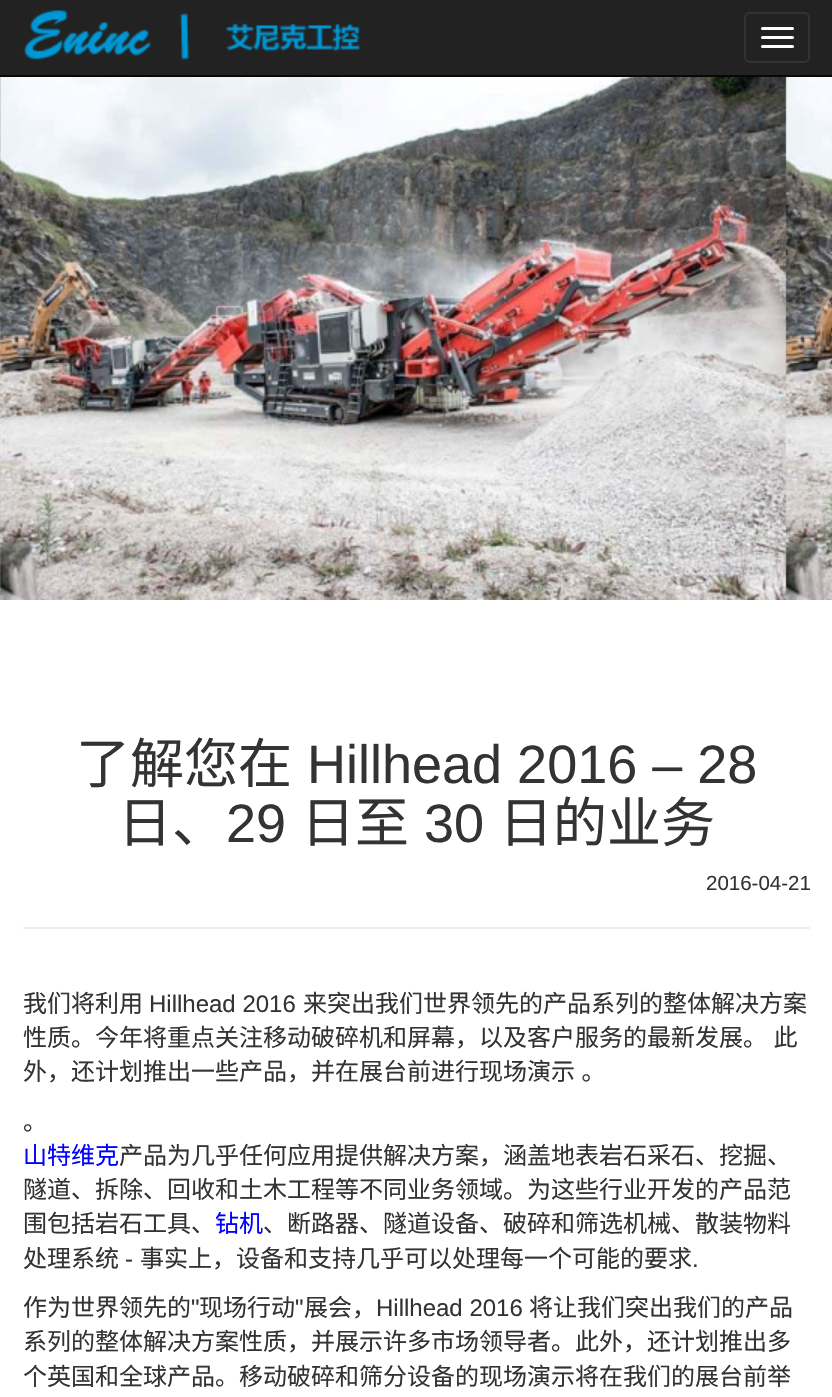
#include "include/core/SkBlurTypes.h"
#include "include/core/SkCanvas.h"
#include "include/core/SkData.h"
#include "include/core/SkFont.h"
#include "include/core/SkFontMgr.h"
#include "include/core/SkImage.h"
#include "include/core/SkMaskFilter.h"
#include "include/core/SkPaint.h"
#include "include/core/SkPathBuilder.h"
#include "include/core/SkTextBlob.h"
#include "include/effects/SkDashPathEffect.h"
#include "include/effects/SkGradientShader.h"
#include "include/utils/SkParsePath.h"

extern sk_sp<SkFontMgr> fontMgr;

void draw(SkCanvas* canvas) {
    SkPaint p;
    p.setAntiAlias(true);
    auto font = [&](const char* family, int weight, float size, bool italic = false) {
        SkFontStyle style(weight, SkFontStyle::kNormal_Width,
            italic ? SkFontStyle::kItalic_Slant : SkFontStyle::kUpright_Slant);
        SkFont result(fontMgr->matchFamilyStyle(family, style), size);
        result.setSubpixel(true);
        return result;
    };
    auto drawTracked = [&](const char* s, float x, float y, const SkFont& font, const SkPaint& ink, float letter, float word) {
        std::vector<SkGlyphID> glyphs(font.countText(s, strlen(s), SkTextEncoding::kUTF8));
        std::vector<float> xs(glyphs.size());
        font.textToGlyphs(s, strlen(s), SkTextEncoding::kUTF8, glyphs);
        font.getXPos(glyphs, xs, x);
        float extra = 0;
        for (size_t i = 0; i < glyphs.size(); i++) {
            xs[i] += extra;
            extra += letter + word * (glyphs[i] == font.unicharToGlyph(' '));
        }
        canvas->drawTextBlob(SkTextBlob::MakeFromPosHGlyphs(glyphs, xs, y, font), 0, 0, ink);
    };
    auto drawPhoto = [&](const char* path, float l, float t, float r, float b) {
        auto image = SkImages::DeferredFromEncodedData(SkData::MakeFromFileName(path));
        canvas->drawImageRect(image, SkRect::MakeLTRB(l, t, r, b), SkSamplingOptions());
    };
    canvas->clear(0xFFFFFFFF);
    p.setColor(0xFF222222);
    canvas->drawRect(SkRect::MakeLTRB(0, 0, 832, 75), p);
    p.setColor(0xFF080808);
    canvas->drawRect(SkRect::MakeLTRB(0, 75, 832, 77), p);
    drawPhoto("media/1.png", 23, 10, 361, 61);
    p.setStyle(SkPaint::kStroke_Style);
    p.setStrokeWidth(2);
    p.setColor(0xFF333333);
    canvas->drawRoundRect(SkRect::MakeLTRB(745, 13, 809, 62), 5, 5, p);
    p.setStyle(SkPaint::kFill_Style);
    p.setColor(0xFFFFFFFF);
    canvas->drawRoundRect(SkRect::MakeLTRB(761, 27, 794, 30), 1.5f, 1.5f, p);
    canvas->drawRoundRect(SkRect::MakeLTRB(761, 36, 794, 39), 1.5f, 1.5f, p);
    canvas->drawRoundRect(SkRect::MakeLTRB(761, 45, 794, 48), 1.5f, 1.5f, p);
    drawPhoto("media/2.png", 0, 77, 832, 600);
    p.setColor(0xFFEEEEEE);
    canvas->drawRect(SkRect::MakeLTRB(23, 927, 810, 929), p);
    auto font1 = font("Noto Sans CJK SC", 400, 54);
    p.setColor(0xFF333333);
    canvas->drawString("了解您在", 76, 783, font1, p);
    auto font2 = font("Liberation Sans", 400, 54);
    canvas->drawString("Hillhead 2016 – 28", 307, 783, font2, p);
    canvas->drawString("日、", 118, 842, font1, p);
    canvas->drawString("29", 226, 842, font2, p);
    canvas->drawString("日至", 301, 842, font1, p);
    canvas->drawString("30", 424, 842, font2, p);
    canvas->drawString("日的业务", 499, 842, font1, p);
    auto font3 = font("Liberation Sans", 400, 20.5f);
    canvas->drawString("2016-04-21", 706, 890, font3, p);
    auto font4 = font("Noto Sans CJK SC", 400, 24);
    canvas->drawString("我们将利用", 23, 1012, font4, p);
    auto font5 = font("Liberation Sans", 400, 24);
    canvas->drawString("Hillhead 2016", 149, 1012, font5, p);
    canvas->drawString("来突出我们世界领先的产品系列的整体解决方案", 303, 1012, font4, p);
    drawTracked("性质。今年将重点关注移动破碎机和屏幕，以及客户服务的最新发展。 此", 23, 1046, font4, p, 0, 1);
    drawTracked("外，还计划推出一些产品，并在展台前进行现场演示 。", 23, 1080, font4, p, 0, 1);
    canvas->drawString("。", 23, 1130, font4, p);
    p.setColor(0xFF0000FF);
    canvas->drawString("山特维克", 23, 1164, font4, p);
    p.setColor(0xFF333333);
    {
        const struct { const char* s; float x, y; } items[] = {
            {"产品为几乎任何应用提供解决方案，涵盖地表岩石采石、挖掘、", 119, 1164},
            {"隧道、拆除、回收和土木工程等不同业务领域。为这些行业开发的产品范", 23, 1198},
            {"围包括岩石工具、", 23, 1232},
        };
        for (auto [s, x, y] : items) {
            canvas->drawString(s, x, y, font4, p);
        }
    }
    p.setColor(0xFF0000FF);
    canvas->drawString("钻机", 215, 1232, font4, p);
    p.setColor(0xFF333333);
    canvas->drawString("、断路器、隧道设备、破碎和筛选机械、散装物料", 263, 1232, font4, p);
    canvas->drawString("处理系统", 23, 1267, font4, p);
    canvas->drawString("-", 125, 1267, font5, p);
    canvas->drawString("事实上，设备和支持几乎可以处理每一个可能的要求", 140, 1267, font4, p);
    canvas->drawString(".", 692, 1267, font5, p);
    canvas->drawString("作为世界领先的", 23, 1316, font4, p);
    canvas->drawString("\"", 191, 1316, font5, p);
    canvas->drawString("现场行动", 199, 1316, font4, p);
    canvas->drawString("\"", 295, 1316, font5, p);
    canvas->drawString("展会，", 304, 1316, font4, p);
    canvas->drawString("Hillhead 2016", 376, 1316, font5, p);
    {
        const struct { const char* s; float x, y; } items[] = {
            {"将让我们突出我们的产品", 529, 1316},
            {"系列的整体解决方案性质，并展示许多市场领导者。此外，还计划推出多", 23, 1350},
            {"个英国和全球产品。移动破碎和筛分设备的现场演示将在我们的展台前举", 23, 1385},
        };
        for (auto [s, x, y] : items) {
            canvas->drawString(s, x, y, font4, p);
        }
    }
}
